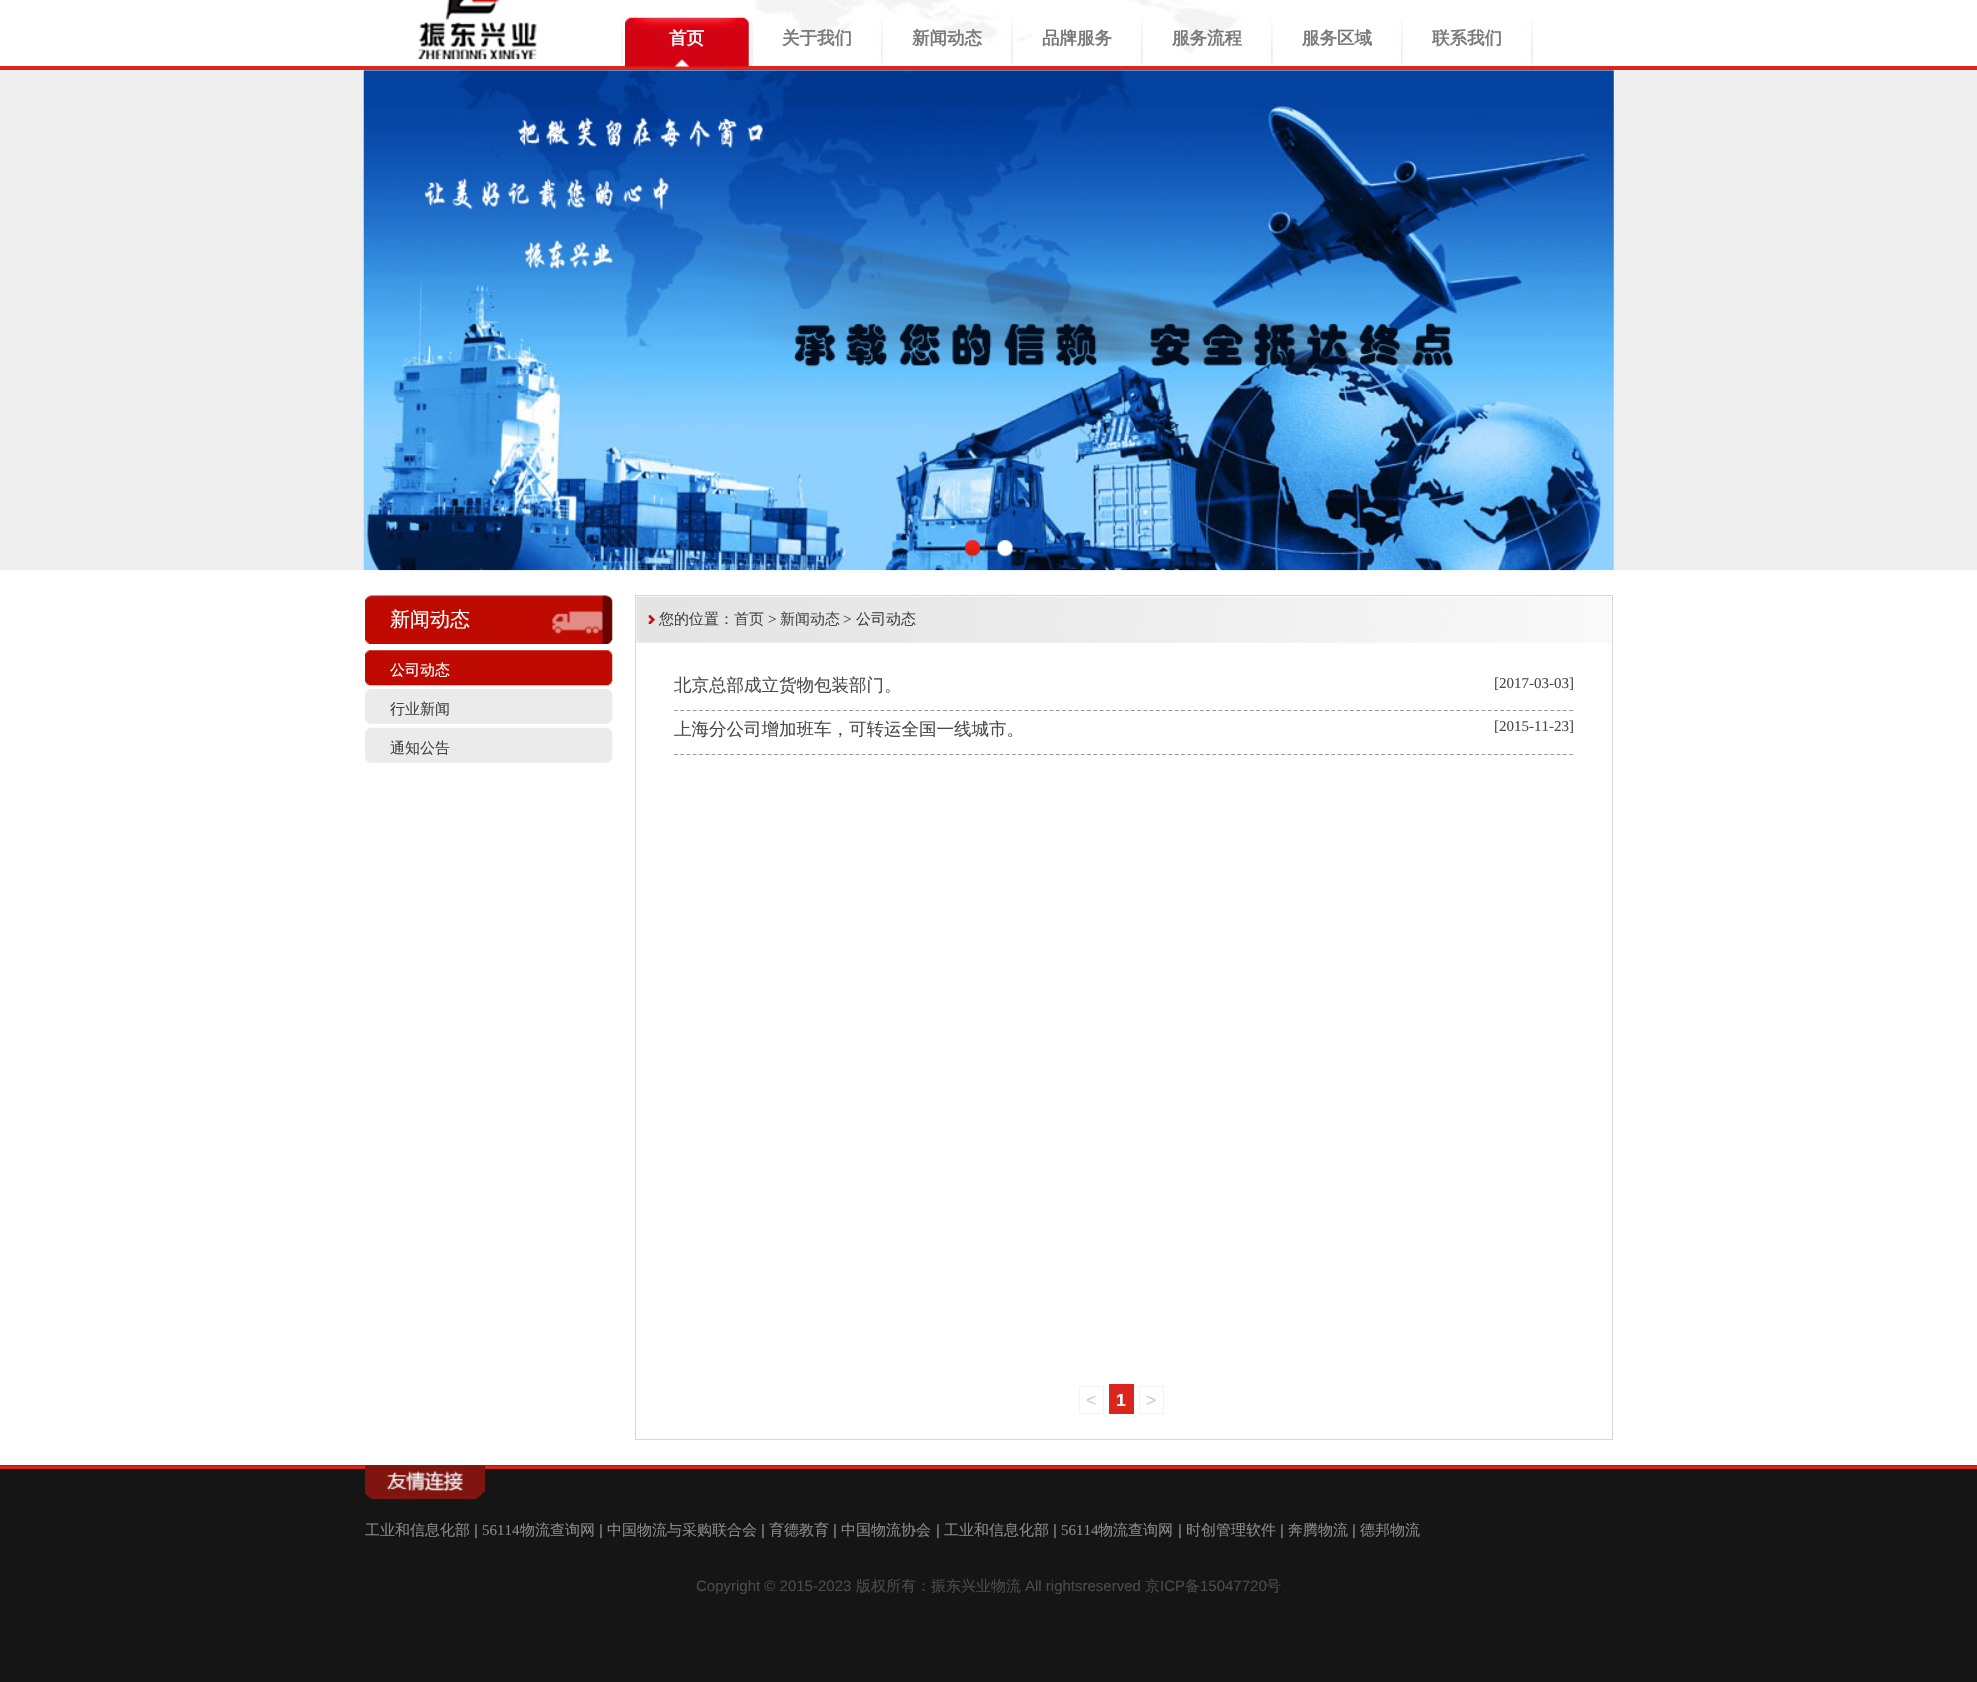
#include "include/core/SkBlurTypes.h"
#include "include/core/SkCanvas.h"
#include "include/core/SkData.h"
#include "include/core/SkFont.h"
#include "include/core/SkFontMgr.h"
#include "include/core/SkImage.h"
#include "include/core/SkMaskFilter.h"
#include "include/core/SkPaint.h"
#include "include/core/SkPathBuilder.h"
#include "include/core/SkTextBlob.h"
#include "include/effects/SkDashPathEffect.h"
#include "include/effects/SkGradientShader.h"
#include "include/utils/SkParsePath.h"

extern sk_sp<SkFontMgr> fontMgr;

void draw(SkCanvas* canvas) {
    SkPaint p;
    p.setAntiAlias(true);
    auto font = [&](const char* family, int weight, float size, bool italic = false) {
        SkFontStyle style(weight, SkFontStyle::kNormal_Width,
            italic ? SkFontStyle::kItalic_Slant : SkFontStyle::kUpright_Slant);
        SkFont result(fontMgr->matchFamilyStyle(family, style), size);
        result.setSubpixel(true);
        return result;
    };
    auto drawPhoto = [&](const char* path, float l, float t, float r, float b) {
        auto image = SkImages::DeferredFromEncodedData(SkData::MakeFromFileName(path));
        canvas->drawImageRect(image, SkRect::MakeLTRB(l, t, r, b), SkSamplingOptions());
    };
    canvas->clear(0xFFFFFFFF);
    drawPhoto("media/1.png", 621, 0, 1533, 66);
    drawPhoto("media/2.png", 418, 0, 622, 60);
    p.setColor(0xFFDC251C);
    canvas->drawRect(SkRect::MakeLTRB(0, 66, 1977, 70), p);
    drawPhoto("media/3.png", 625, 17, 749, 67);
    auto font1 = font("WenQuanYi Zen Hei", 700, 17.5f);
    p.setColor(0xFFFFFFFF);
    canvas->drawString("首页", 669, 44, font1, p);
    p.setColor(0xFF7A7A7A);
    {
        const struct { const char* s; float x, y; } items[] = {
            {"关于我们", 782, 44},
            {"新闻动态", 912, 44},
            {"品牌服务", 1042, 44},
            {"服务流程", 1172, 44},
            {"服务区域", 1302, 44},
            {"联系我们", 1432, 44},
        };
        for (auto [s, x, y] : items) {
            canvas->drawString(s, x, y, font1, p);
        }
    }
    p.setColor(0xFFEEEEEE);
    canvas->drawRect(SkRect::MakeLTRB(0, 70, 1977, 570), p);
    drawPhoto("media/4.png", 363, 70, 1614, 571);
    drawPhoto("media/5.png", 965, 540, 983, 557);
    drawPhoto("media/6.png", 996, 540, 1013, 557);
    drawPhoto("media/7.png", 365, 595, 613, 644);
    auto font2 = font("WenQuanYi Zen Hei", 500, 20);
    p.setColor(0xFFFFFFFF);
    canvas->drawString("新闻动态", 390, 626, font2, p);
    drawPhoto("media/8.png", 365, 650, 613, 686);
    auto font3 = font("WenQuanYi Zen Hei", 500, 15);
    canvas->drawString("公司动态", 390, 675, font3, p);
    drawPhoto("media/9.png", 365, 689, 613, 724);
    p.setColor(0xFF434343);
    canvas->drawString("行业新闻", 390, 714, font3, p);
    drawPhoto("media/10.png", 365, 727, 613, 763);
    canvas->drawString("通知公告", 390, 753, font3, p);
    p.setStyle(SkPaint::kStroke_Style);
    p.setStrokeWidth(1);
    p.setColor(0xFFD6D6D6);
    canvas->drawRect(SkRect::MakeLTRB(635.5f, 595.5f, 1612.5f, 1439.5f), p);
    drawPhoto("media/11.png", 636, 596, 1611, 643);
    drawPhoto("media/12.png", 648, 615, 655, 624);
    p.setStyle(SkPaint::kFill_Style);
    p.setColor(0xFF434343);
    canvas->drawString("您的位置：", 659, 624, font3, p);
    p.setColor(0xFF4A4A4A);
    canvas->drawString("首页", 734, 624, font3, p);
    auto font4 = font("Liberation Serif", 400, 15);
    p.setColor(0xFF434343);
    canvas->drawString(">", 768, 624, font4, p);
    p.setColor(0xFF4A4A4A);
    canvas->drawString("新闻动态", 780, 624, font3, p);
    p.setColor(0xFF434343);
    canvas->drawString(">", 843, 624, font4, p);
    canvas->drawString("公司动态", 856, 624, font3, p);
    p.setStyle(SkPaint::kStroke_Style);
    p.setStrokeWidth(1.2f);
    p.setColor(0xFF989898);
    p.setPathEffect(SkDashPathEffect::Make({{3.75f, 2.51f}}, 0));
    canvas->drawPath(SkPathBuilder().moveTo(674, 710.5f).lineTo(1574, 710.5f).detach(), p);
    p.setPathEffect(nullptr);
    auto font5 = font("WenQuanYi Zen Hei", 500, 17.5f);
    p.setStyle(SkPaint::kFill_Style);
    p.setColor(0xFF4A4A4A);
    canvas->drawString("北京总部成立货物包装部门。", 674, 691, font5, p);
    canvas->drawString("[2017-03-03]", 1494, 688, font4, p);
    p.setStyle(SkPaint::kStroke_Style);
    p.setColor(0xFF989898);
    p.setPathEffect(SkDashPathEffect::Make({{3.75f, 2.51f}}, 0));
    canvas->drawPath(SkPathBuilder().moveTo(674, 754.5f).lineTo(1574, 754.5f).detach(), p);
    p.setPathEffect(nullptr);
    p.setStyle(SkPaint::kFill_Style);
    p.setColor(0xFF4A4A4A);
    canvas->drawString("上海分公司增加班车，可转运全国一线城市。", 674, 735, font5, p);
    canvas->drawString("[2015-11-23]", 1494, 731, font4, p);
    p.setStyle(SkPaint::kStroke_Style);
    p.setStrokeWidth(1);
    p.setColor(0xFFF3F3F3);
    canvas->drawRect(SkRect::MakeLTRB(1079.5f, 1386.5f, 1103.5f, 1413.5f), p);
    auto font6 = font("Liberation Sans", 400, 17.5f);
    p.setStyle(SkPaint::kFill_Style);
    p.setColor(0xFFCCCCCC);
    canvas->drawString("<", 1086, 1406, font6, p);
    p.setColor(0xFFDC251C);
    canvas->drawRect(SkRect::MakeLTRB(1109, 1384, 1134, 1414), p);
    auto font7 = font("Liberation Sans", 700, 17.5f);
    p.setColor(0xFFFFFFFF);
    canvas->drawString("1", 1116, 1406, font7, p);
    p.setStyle(SkPaint::kStroke_Style);
    p.setColor(0xFFF3F3F3);
    canvas->drawRect(SkRect::MakeLTRB(1139.5f, 1386.5f, 1163.5f, 1413.5f), p);
    p.setStyle(SkPaint::kFill_Style);
    p.setColor(0xFFCCCCCC);
    canvas->drawString(">", 1146, 1406, font6, p);
    p.setColor(0xFF151515);
    canvas->drawRect(SkRect::MakeLTRB(0, 1465, 1977, 1682), p);
    drawPhoto("media/13.png", 0, 1465, 1977, 1470);
    drawPhoto("media/14.png", 365, 1465, 485, 1499);
    p.setColor(0xFF898989);
    canvas->drawString("工业和信息化部", 365, 1535, font3, p);
    auto font8 = font("Liberation Sans", 400, 15);
    canvas->drawString("|", 474, 1535, font8, p);
    canvas->drawString("56114", 482, 1535, font4, p);
    canvas->drawString("物流查询网", 520, 1535, font3, p);
    canvas->drawString("|", 599, 1535, font8, p);
    canvas->drawString("中国物流与采购联合会", 607, 1535, font3, p);
    canvas->drawString("|", 761, 1535, font8, p);
    canvas->drawString("育德教育", 769, 1535, font3, p);
    canvas->drawString("|", 833, 1535, font8, p);
    canvas->drawString("中国物流协会", 841, 1535, font3, p);
    canvas->drawString("|", 936, 1535, font8, p);
    canvas->drawString("工业和信息化部", 944, 1535, font3, p);
    canvas->drawString("|", 1053, 1535, font8, p);
    canvas->drawString("56114", 1061, 1535, font4, p);
    canvas->drawString("物流查询网", 1098, 1535, font3, p);
    canvas->drawString("|", 1178, 1535, font8, p);
    canvas->drawString("时创管理软件", 1186, 1535, font3, p);
    canvas->drawString("|", 1280, 1535, font8, p);
    canvas->drawString("奔腾物流", 1288, 1535, font3, p);
    canvas->drawString("|", 1352, 1535, font8, p);
    canvas->drawString("德邦物流", 1360, 1535, font3, p);
    p.setColor(0xFF4A4A4A);
    canvas->drawString("Copyright © 2015-2023", 696, 1591, font8, p);
    canvas->drawString("版权所有：振东兴业物流", 856, 1591, font3, p);
    canvas->drawString("All rightsreserved", 1025, 1591, font8, p);
    canvas->drawString("京", 1145, 1591, font3, p);
    canvas->drawString("ICP", 1160, 1591, font8, p);
    canvas->drawString("备", 1185, 1591, font3, p);
    canvas->drawString("15047720", 1200, 1591, font8, p);
    canvas->drawString("号", 1266, 1591, font3, p);
}
